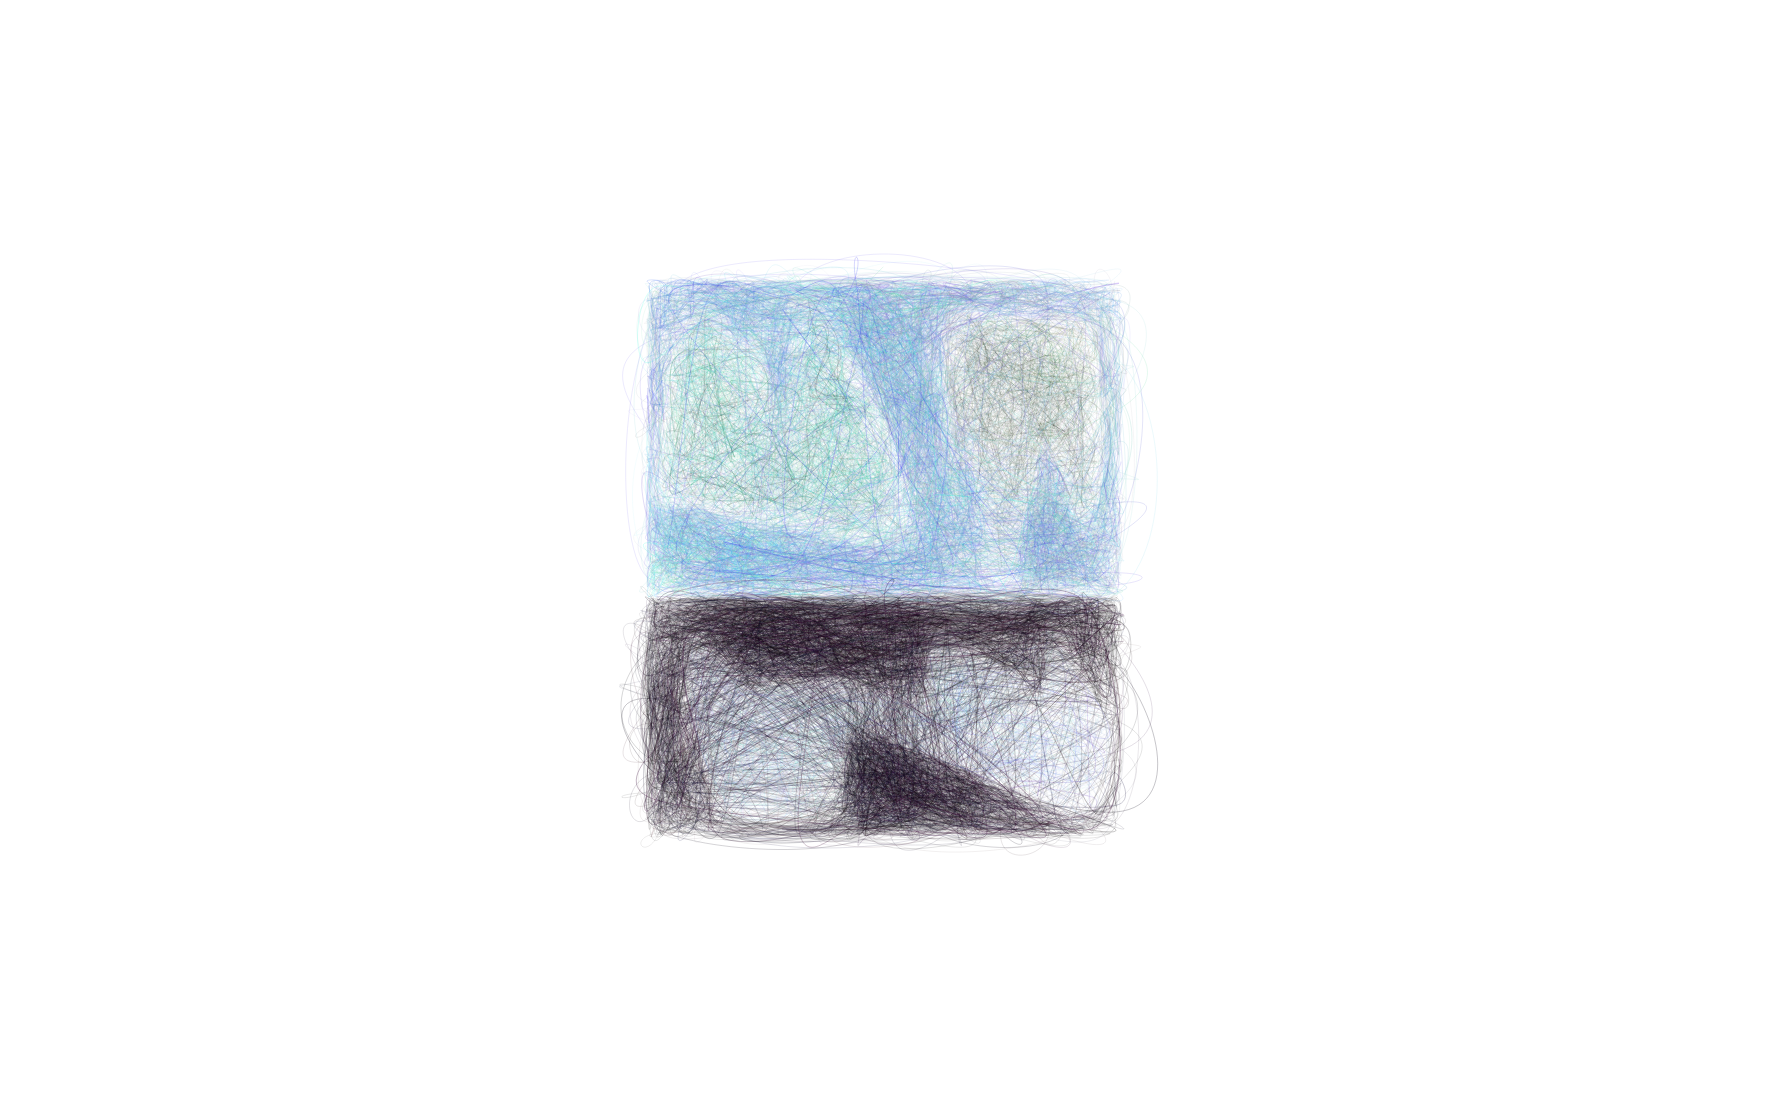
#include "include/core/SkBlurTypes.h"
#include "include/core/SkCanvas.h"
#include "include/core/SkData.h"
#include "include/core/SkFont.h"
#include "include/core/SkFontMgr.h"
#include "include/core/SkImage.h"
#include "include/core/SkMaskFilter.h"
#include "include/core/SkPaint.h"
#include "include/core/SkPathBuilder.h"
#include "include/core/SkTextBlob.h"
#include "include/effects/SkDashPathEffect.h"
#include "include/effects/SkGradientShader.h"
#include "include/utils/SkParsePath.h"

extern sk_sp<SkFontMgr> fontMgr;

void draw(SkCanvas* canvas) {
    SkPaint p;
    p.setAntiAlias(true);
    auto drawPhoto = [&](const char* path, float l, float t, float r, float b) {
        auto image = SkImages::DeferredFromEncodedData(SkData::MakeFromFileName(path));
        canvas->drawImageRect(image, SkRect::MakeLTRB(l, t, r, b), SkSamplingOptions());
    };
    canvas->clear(0xFFFFFFFF);
    drawPhoto("media/1.png", 619, 253, 1159, 856);
}
